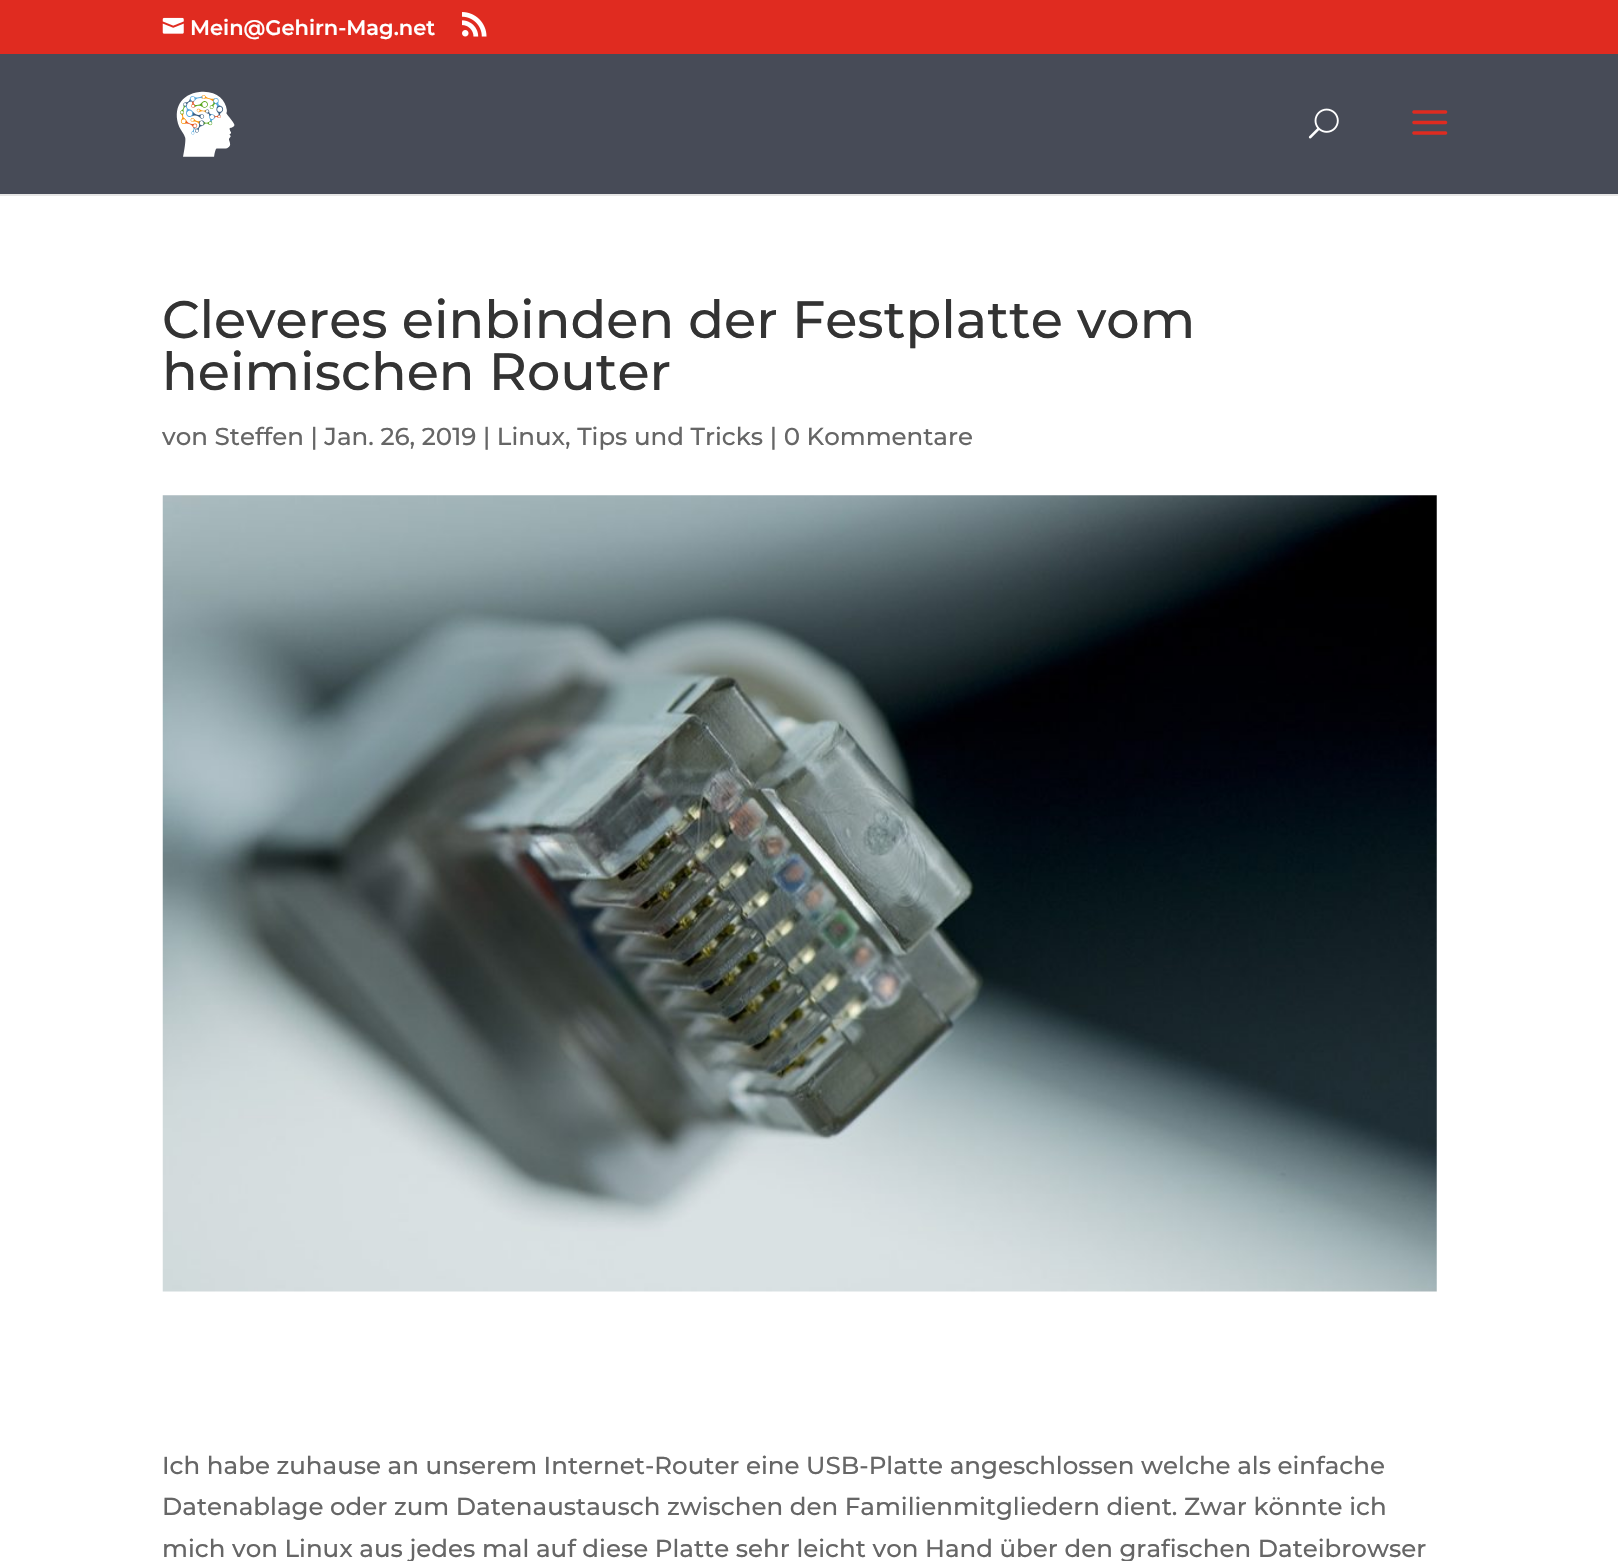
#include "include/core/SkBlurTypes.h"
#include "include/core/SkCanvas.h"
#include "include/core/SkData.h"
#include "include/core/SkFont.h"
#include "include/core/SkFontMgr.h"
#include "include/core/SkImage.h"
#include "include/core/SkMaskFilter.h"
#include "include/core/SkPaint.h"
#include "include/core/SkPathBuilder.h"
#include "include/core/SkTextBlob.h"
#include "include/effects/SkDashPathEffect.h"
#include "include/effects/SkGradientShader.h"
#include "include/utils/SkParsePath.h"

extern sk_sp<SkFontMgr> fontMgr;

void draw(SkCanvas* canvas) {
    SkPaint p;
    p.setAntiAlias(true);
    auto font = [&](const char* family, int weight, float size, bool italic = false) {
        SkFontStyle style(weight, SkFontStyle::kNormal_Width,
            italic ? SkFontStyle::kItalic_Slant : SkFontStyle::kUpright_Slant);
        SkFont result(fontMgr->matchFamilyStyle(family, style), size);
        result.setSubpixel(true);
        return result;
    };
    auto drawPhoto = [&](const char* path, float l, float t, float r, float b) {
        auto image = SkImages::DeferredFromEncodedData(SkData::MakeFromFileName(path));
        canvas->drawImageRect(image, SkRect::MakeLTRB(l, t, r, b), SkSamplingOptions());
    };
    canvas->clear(0xFFFFFFFF);
    p.setColor(0xFFE02B20);
    canvas->drawRect(SkRect::MakeLTRB(0, 0, 1618, 54), p);
    drawPhoto("media/1.png", 162, 17, 184, 34);
    auto font1 = font("Montserrat", 600, 21);
    p.setColor(0xFFFFFFFF);
    canvas->drawString("Mein@Gehirn-Mag.net", 190, 35, font1, p);
    drawPhoto("media/2.png", 462, 12, 487, 37);
    p.setColor(0xFFE6E6E6);
    canvas->drawPath(SkPathBuilder().moveTo(0, 194).lineTo(0, 196).lineTo(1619, 196).lineTo(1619, 56).lineTo(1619, 194).close().detach(), p);
    p.setColor(0xFF474B57);
    canvas->drawRect(SkRect::MakeLTRB(0, 54, 1618, 194), p);
    drawPhoto("media/3.png", 176, 91, 235, 157);
    drawPhoto("media/4.png", 1308, 108, 1339, 139);
    drawPhoto("media/5.png", 1412, 110, 1448, 135);
    auto font2 = font("Montserrat", 500, 52.5f);
    p.setColor(0xFF333333);
    canvas->drawString("Cleveres einbinden der Festplatte vom", 162, 338, font2, p);
    canvas->drawString("heimischen Router", 162, 390, font2, p);
    auto font3 = font("Montserrat", 500, 24.5f);
    p.setColor(0xFF666666);
    canvas->drawString("von Steffen | Jan. 26, 2019 | Linux, Tips und Tricks | 0 Kommentare", 162, 445, font3, p);
    drawPhoto("media/6.png", 162, 495, 1437, 1292);
    {
        const struct { const char* s; float x, y; } items[] = {
            {"Ich habe zuhause an unserem Internet-Router eine USB-Platte angeschlossen welche als einfache", 162, 1474},
            {"Datenablage oder zum Datenaustausch zwischen den Familienmitgliedern dient. Zwar könnte ich", 162, 1515},
            {"mich von Linux aus jedes mal auf diese Platte sehr leicht von Hand über den grafischen Dateibrowser", 162, 1557},
        };
        for (auto [s, x, y] : items) {
            canvas->drawString(s, x, y, font3, p);
        }
    }
}
